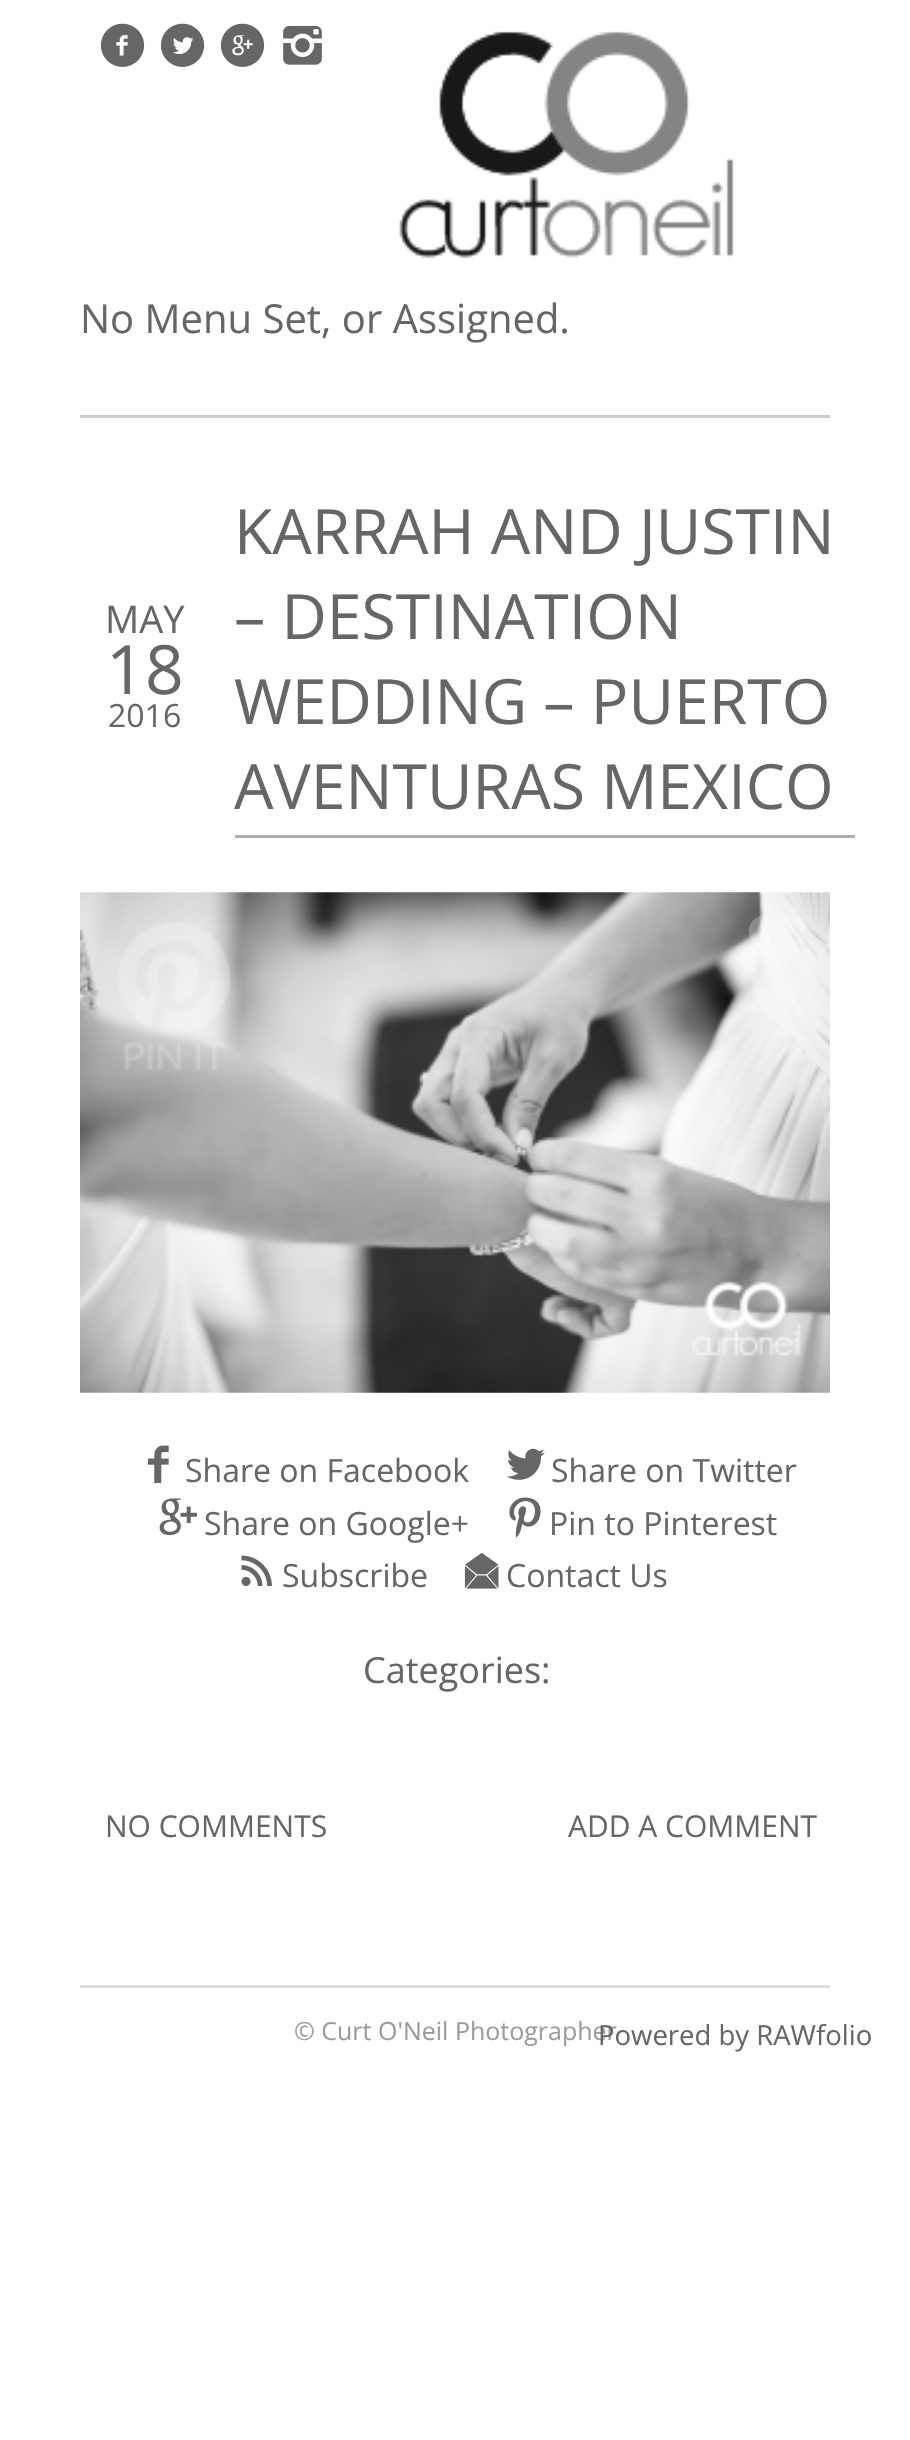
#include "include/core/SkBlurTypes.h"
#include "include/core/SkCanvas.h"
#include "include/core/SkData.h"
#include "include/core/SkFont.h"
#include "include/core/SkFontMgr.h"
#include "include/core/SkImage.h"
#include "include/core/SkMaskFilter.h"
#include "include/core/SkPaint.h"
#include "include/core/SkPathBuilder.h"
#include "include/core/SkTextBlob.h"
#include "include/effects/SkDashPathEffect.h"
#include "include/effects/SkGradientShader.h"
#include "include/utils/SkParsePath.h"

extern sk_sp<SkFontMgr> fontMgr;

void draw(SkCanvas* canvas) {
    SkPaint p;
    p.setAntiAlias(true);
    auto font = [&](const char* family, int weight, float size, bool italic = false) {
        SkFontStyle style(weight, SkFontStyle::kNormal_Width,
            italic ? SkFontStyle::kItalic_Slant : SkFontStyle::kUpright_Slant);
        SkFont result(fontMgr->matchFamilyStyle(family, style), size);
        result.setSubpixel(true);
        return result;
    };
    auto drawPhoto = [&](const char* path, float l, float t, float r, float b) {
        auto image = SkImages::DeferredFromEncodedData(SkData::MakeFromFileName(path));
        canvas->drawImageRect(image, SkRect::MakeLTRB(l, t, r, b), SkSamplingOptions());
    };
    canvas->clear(0xFFFFFFFF);
    p.setColor(0xFFCCCCCC);
    canvas->drawRect(SkRect::MakeLTRB(80, 415, 830, 418), p);
    drawPhoto("media/1.png", 100, 23, 145, 67);
    drawPhoto("media/2.png", 160, 23, 205, 67);
    drawPhoto("media/3.png", 220, 23, 265, 67);
    drawPhoto("media/4.png", 283, 25, 322, 65);
    drawPhoto("media/5.png", 399, 31, 735, 259);
    auto font1 = font("Open Sans", 400, 40);
    p.setColor(0xFF666666);
    canvas->drawString("No Menu Set, or Assigned.", 80, 333, font1, p);
    auto font2 = font("Open Sans", 400, 38);
    canvas->drawString("MAY", 105, 633, font2, p);
    auto font3 = font("Open Sans", 400, 68);
    canvas->drawString("18", 106, 694, font3, p);
    auto font4 = font("Open Sans", 400, 32);
    canvas->drawString("2016", 108, 727, font4, p);
    p.setColor(0xFFADADAD);
    canvas->drawRect(SkRect::MakeLTRB(235, 835, 855, 838), p);
    auto font5 = font("Open Sans", 400, 62.5f);
    p.setColor(0xFF666666);
    {
        const struct { const char* s; float x, y; } items[] = {
            {"KARRAH AND JUSTIN", 234, 554},
            {"– DESTINATION", 234, 639},
            {"WEDDING – PUERTO", 234, 724},
            {"AVENTURAS MEXICO", 234, 809},
        };
        for (auto [s, x, y] : items) {
            canvas->drawString(s, x, y, font5, p);
        }
    }
    drawPhoto("media/6.png", 80, 892, 830, 1393);
    drawPhoto("media/7.png", 80, 892, 830, 1393);
    drawPhoto("media/8.png", 118, 923, 230, 1071);
    p.setColor(0x40FFFFFF);
    canvas->drawPath(SkPathBuilder().moveTo(778, 924).cubicTo(787, 900, 836, 928, 778, 963).cubicTo(768, 957, 755, 948, 750, 937).cubicTo(743, 919, 769, 905, 778, 924).close().detach(), p);
    drawPhoto("media/9.png", 147, 1445, 169, 1483);
    p.setColor(0xFF666666);
    canvas->drawString("Share on Facebook", 185, 1482, font4, p);
    drawPhoto("media/10.png", 506, 1448, 545, 1480);
    canvas->drawString("Share on Twitter", 551, 1482, font4, p);
    drawPhoto("media/11.png", 159, 1498, 197, 1536);
    canvas->drawString("Share on Google+", 204, 1535, font4, p);
    drawPhoto("media/12.png", 509, 1497, 541, 1538);
    canvas->drawString("Pin to Pinterest", 549, 1535, font4, p);
    drawPhoto("media/13.png", 241, 1555, 272, 1586);
    canvas->drawString("Subscribe", 282, 1587, font4, p);
    drawPhoto("media/14.png", 464, 1552, 499, 1589);
    canvas->drawString("Contact Us", 506, 1587, font4, p);
    auto font6 = font("Open Sans", 400, 36);
    canvas->drawString("Categories:", 363, 1683, font6, p);
    auto font7 = font("Open Sans", 400, 30);
    canvas->drawString("NO COMMENTS", 105, 1837, font7, p);
    canvas->drawString("ADD A COMMENT", 568, 1837, font7, p);
    p.setColor(0xFFDDDDDD);
    canvas->drawRect(SkRect::MakeLTRB(80, 1985, 830, 1988), p);
    auto font8 = font("Open Sans", 400, 25);
    p.setColor(0xFF9B9B9B);
    canvas->drawString("© Curt O'Neil Photographer", 294, 2040, font8, p);
    auto font9 = font("Open Sans", 400, 27.5f);
    p.setColor(0xFF666666);
    canvas->drawString("Powered by RAWfolio", 598, 2045, font9, p);
}
